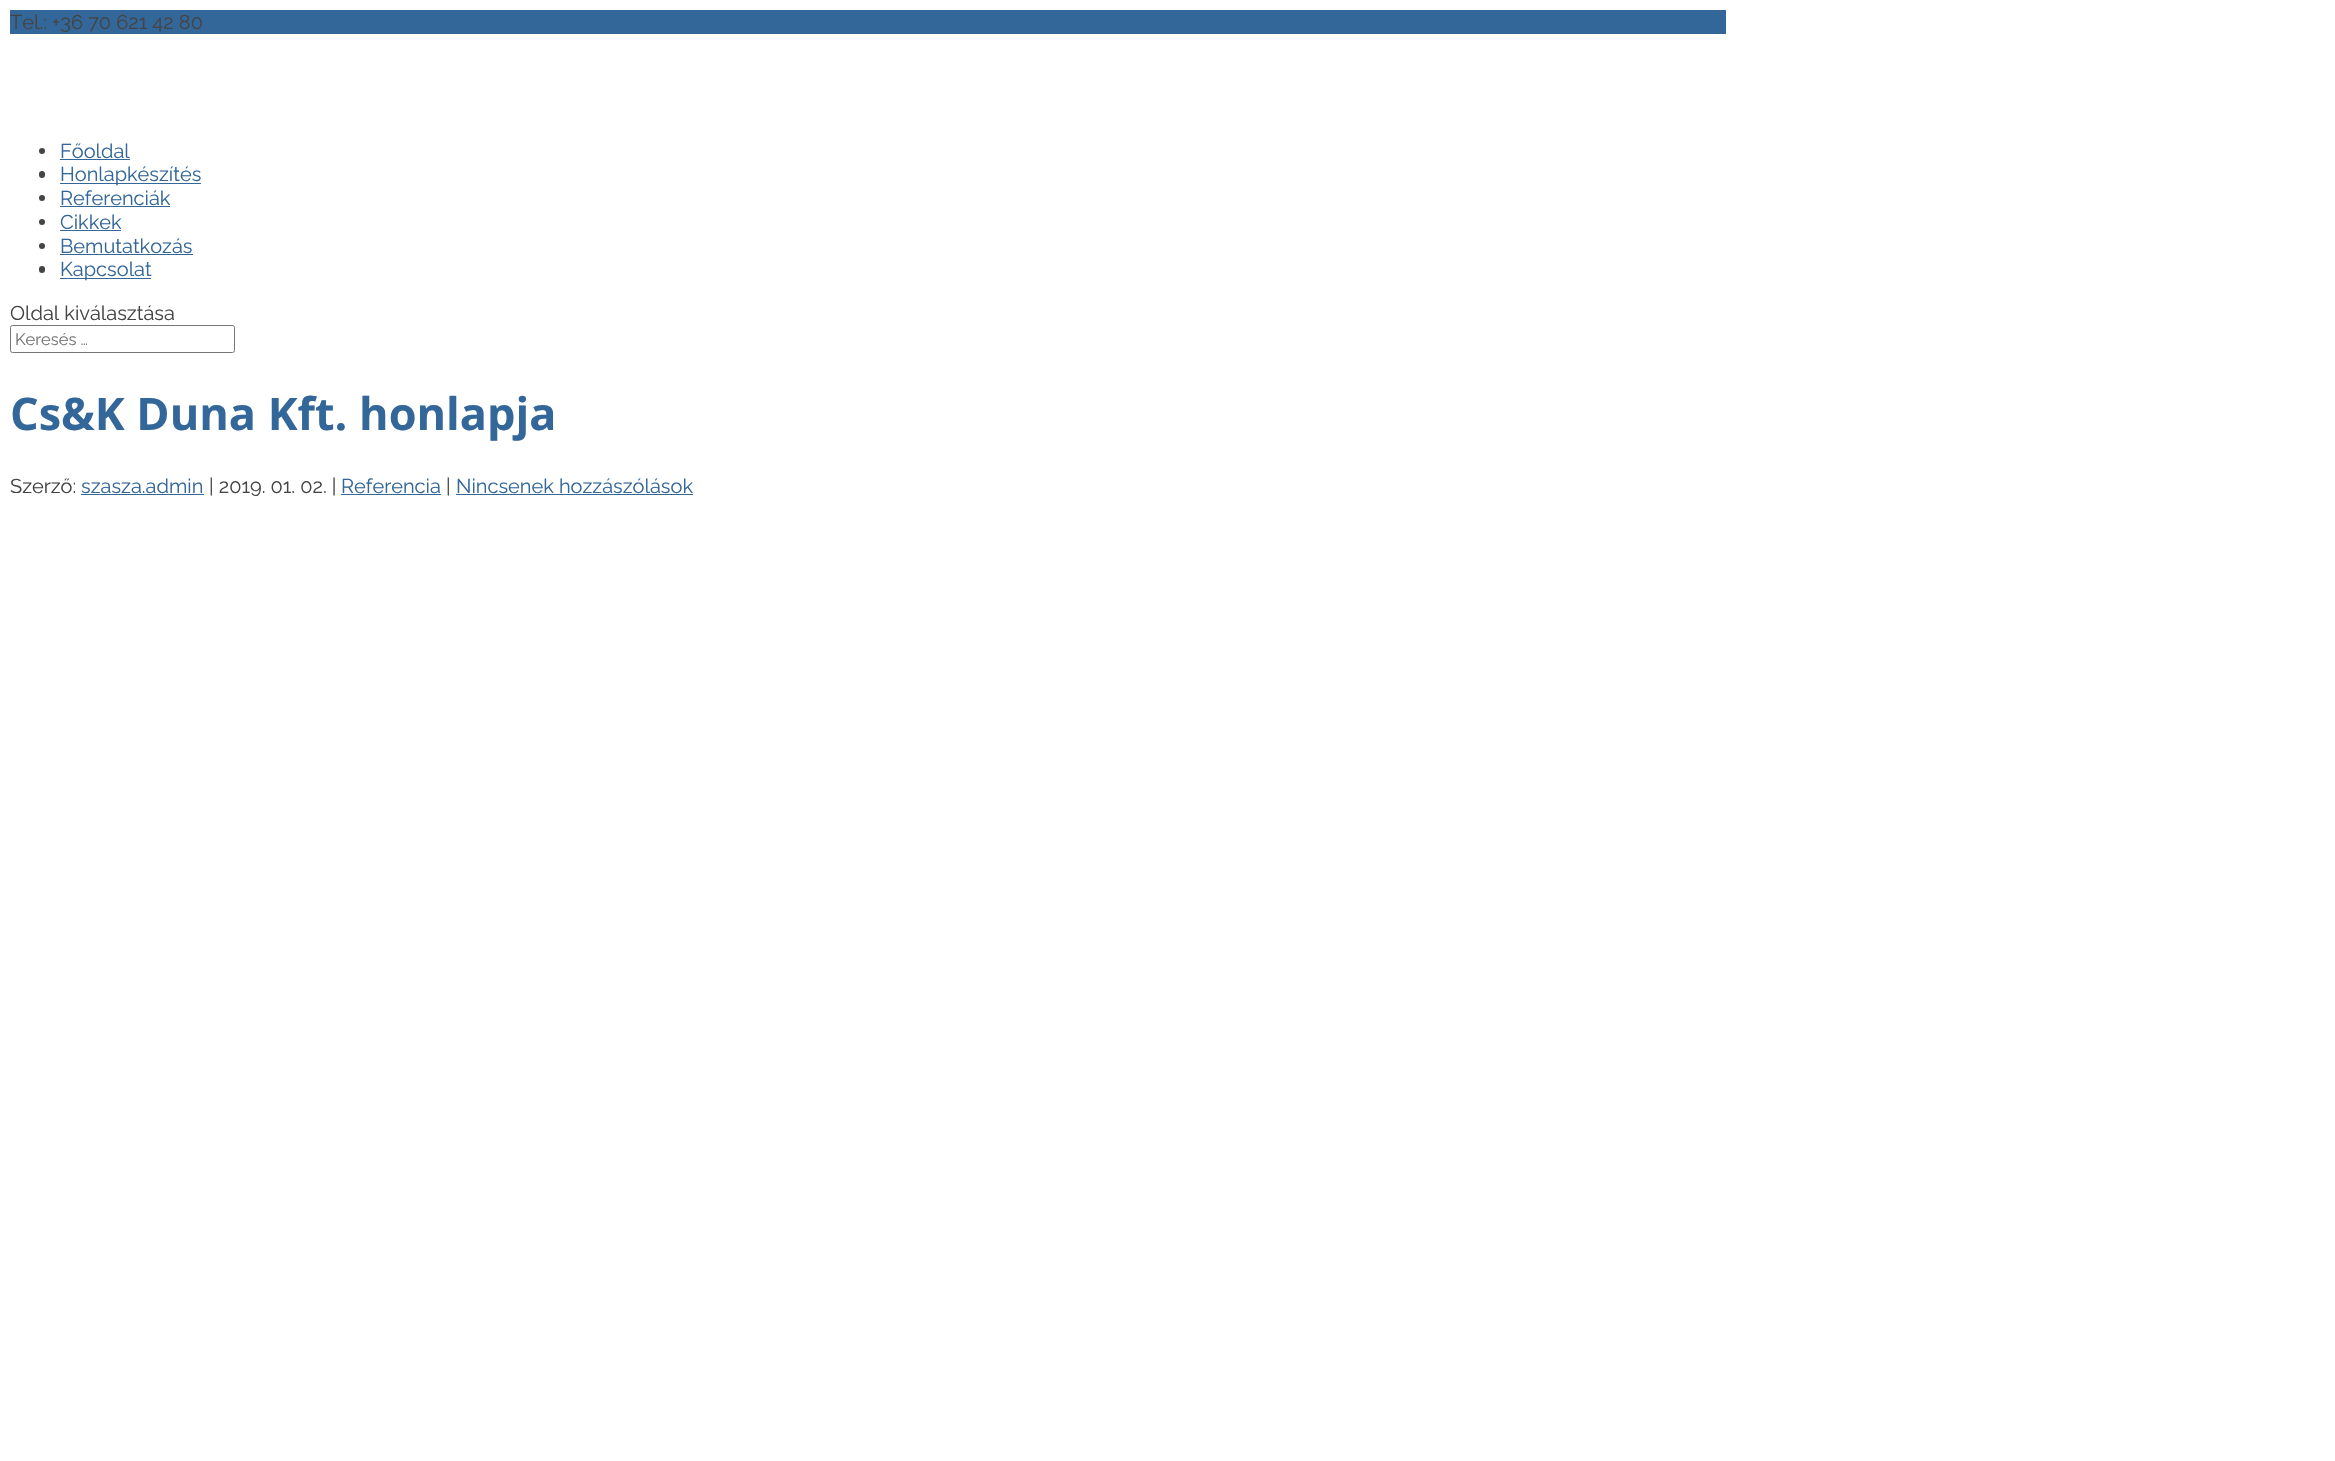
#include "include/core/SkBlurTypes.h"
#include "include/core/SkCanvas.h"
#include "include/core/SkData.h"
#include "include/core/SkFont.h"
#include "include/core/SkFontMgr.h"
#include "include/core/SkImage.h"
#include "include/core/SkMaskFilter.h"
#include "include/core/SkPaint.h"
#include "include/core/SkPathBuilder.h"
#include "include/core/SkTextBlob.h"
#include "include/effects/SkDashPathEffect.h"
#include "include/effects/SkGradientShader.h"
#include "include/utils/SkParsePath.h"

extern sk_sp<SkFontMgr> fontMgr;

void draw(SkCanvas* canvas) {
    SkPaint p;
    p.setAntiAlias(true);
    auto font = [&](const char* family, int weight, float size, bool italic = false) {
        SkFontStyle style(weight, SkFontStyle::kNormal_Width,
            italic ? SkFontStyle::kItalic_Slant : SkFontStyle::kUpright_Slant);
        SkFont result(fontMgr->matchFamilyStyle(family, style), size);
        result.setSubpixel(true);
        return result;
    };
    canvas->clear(0xFFFFFFFF);
    p.setColor(0xFF336699);
    canvas->drawRect(SkRect::MakeLTRB(10, 10, 1726, 34), p);
    auto font1 = font("Raleway", 400, 20);
    p.setColor(0xFF444444);
    canvas->drawString("Tel.: +36 70 621 42 80", 10, 29, font1, p);
    canvas->drawCircle(42, 151, 3, p);
    p.setColor(0xFF336699);
    canvas->drawString("Főoldal", 60, 158, font1, p);
    canvas->drawRect(SkRect::MakeLTRB(60, 159, 130, 160), p);
    p.setColor(0xFF444444);
    canvas->drawRoundRect(SkRect::MakeLTRB(39, 171, 45, 178), 3, 3, p);
    p.setColor(0xFF336699);
    canvas->drawRect(SkRect::MakeLTRB(60, 183, 201, 184), p);
    canvas->drawString("Honlapkészítés", 60, 181, font1, p);
    p.setColor(0xFF444444);
    canvas->drawCircle(42, 198, 3, p);
    p.setColor(0xFF336699);
    canvas->drawString("Referenciák", 60, 205, font1, p);
    canvas->drawRect(SkRect::MakeLTRB(60, 206, 170, 207), p);
    p.setColor(0xFF444444);
    canvas->drawCircle(42, 222, 3, p);
    p.setColor(0xFF336699);
    canvas->drawString("Cikkek", 60, 229, font1, p);
    canvas->drawRect(SkRect::MakeLTRB(60, 230, 121, 231), p);
    p.setColor(0xFF444444);
    canvas->drawCircle(42, 246, 3, p);
    p.setColor(0xFF336699);
    canvas->drawString("Bemutatkozás", 60, 253, font1, p);
    canvas->drawRect(SkRect::MakeLTRB(60, 254, 193, 255), p);
    p.setColor(0xFF444444);
    canvas->drawRoundRect(SkRect::MakeLTRB(39, 266, 45, 273), 3, 3, p);
    p.setColor(0xFF336699);
    canvas->drawRect(SkRect::MakeLTRB(60, 278, 151, 279), p);
    canvas->drawString("Kapcsolat", 60, 276, font1, p);
    p.setColor(0xFF444444);
    canvas->drawString("Oldal kiválasztása", 10, 320, font1, p);
    p.setStyle(SkPaint::kStroke_Style);
    p.setStrokeWidth(1);
    p.setColor(0xFF767676);
    canvas->drawRoundRect(SkRect::MakeLTRB(10.5f, 325.5f, 234.5f, 352.5f), 2, 2, p);
    auto font2 = font("Raleway", 400, 16.5f);
    p.setStyle(SkPaint::kFill_Style);
    p.setColor(0xFF757575);
    canvas->drawString("Keresés …", 15, 345, font2, p);
    auto font3 = font("Open Sans", 700, 45);
    p.setColor(0xFF336699);
    canvas->drawString("Cs&K Duna Kft. honlapja", 10, 430, font3, p);
    p.setColor(0xFF444444);
    canvas->drawString("Szerző:", 10, 493, font1, p);
    p.setColor(0xFF336699);
    canvas->drawString("szasza.admin", 81, 493, font1, p);
    canvas->drawRect(SkRect::MakeLTRB(81, 494, 204, 495), p);
    p.setColor(0xFF444444);
    canvas->drawString("| 2019. 01. 02. |", 209, 493, font1, p);
    p.setColor(0xFF336699);
    canvas->drawString("Referencia", 341, 493, font1, p);
    canvas->drawRect(SkRect::MakeLTRB(341, 494, 441, 495), p);
    p.setColor(0xFF444444);
    canvas->drawString("|", 446, 493, font1, p);
    p.setColor(0xFF336699);
    canvas->drawString("Nincsenek hozzászólások", 456, 493, font1, p);
    canvas->drawRect(SkRect::MakeLTRB(456, 494, 693, 495), p);
}
